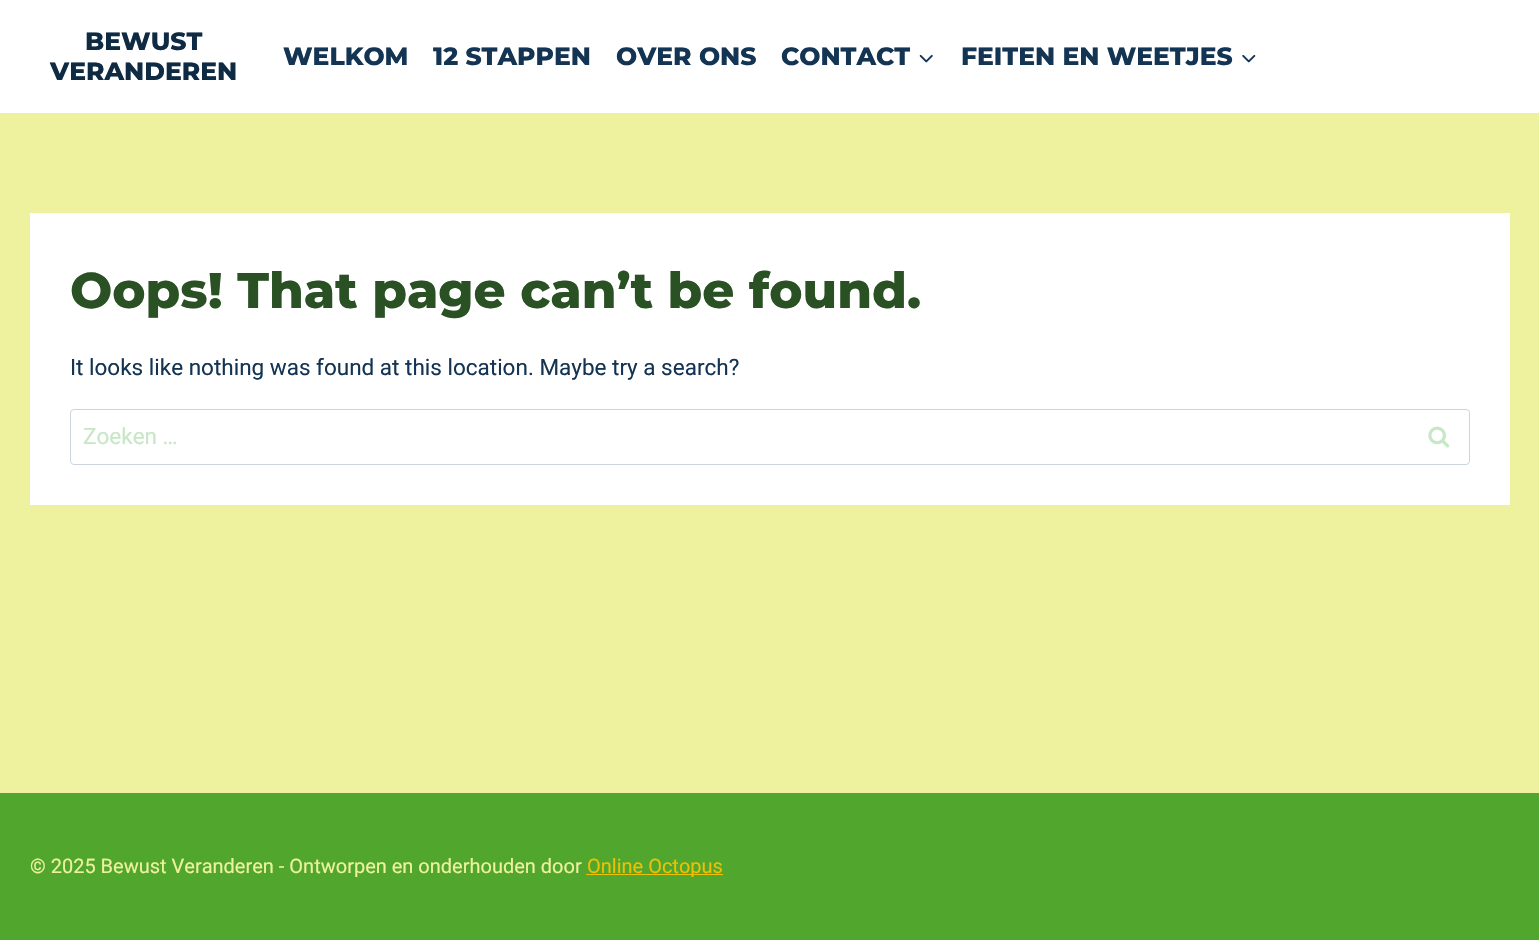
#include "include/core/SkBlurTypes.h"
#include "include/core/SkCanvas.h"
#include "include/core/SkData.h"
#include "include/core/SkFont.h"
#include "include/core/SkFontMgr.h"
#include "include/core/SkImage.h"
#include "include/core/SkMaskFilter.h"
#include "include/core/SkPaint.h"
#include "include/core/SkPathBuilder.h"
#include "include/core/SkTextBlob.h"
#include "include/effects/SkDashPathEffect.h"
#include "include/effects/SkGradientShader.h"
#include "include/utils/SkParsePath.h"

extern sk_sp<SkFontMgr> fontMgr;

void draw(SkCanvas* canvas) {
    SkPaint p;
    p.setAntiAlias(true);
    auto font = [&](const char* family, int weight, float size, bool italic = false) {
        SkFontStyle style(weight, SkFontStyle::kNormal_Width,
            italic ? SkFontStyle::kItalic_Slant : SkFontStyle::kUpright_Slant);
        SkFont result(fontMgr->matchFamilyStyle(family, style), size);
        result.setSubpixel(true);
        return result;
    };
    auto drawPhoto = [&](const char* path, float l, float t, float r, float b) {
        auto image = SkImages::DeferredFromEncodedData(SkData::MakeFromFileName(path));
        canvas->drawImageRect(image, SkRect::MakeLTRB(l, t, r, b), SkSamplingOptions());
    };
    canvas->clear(0xFFEEF29E);
    p.setColor(0xFFFFFFFF);
    canvas->drawRect(SkRect::MakeLTRB(0, 0, 1539, 113), p);
    auto font1 = font("Montserrat", 800, 25);
    p.setColor(0xFF0F2A43);
    canvas->drawString("BEWUST", 85, 50, font1, p);
    canvas->drawString("VERANDEREN", 50, 80, font1, p);
    p.setColor(0xFF133453);
    {
        const struct { const char* s; float x, y; } items[] = {
            {"WELKOM", 283, 65},
            {"12 STAPPEN", 433, 65},
            {"OVER ONS", 616, 65},
            {"CONTACT", 781, 65},
        };
        for (auto [s, x, y] : items) {
            canvas->drawString(s, x, y, font1, p);
        }
    }
    drawPhoto("media/1.png", 919, 54, 933, 63);
    canvas->drawString("FEITEN EN WEETJES", 961, 65, font1, p);
    drawPhoto("media/2.png", 1242, 54, 1256, 63);
    p.setColor(0xFFFFFFFF);
    canvas->drawRect(SkRect::MakeLTRB(30, 213, 1510, 505), p);
    auto font2 = font("Montserrat", 800, 50);
    p.setColor(0xFF2A5124);
    canvas->drawString("Oops! That page can’t be found.", 70, 308, font2, p);
    auto font3 = font("Roboto", 400, 22.5f);
    p.setColor(0xFF133453);
    canvas->drawString("It looks like nothing was found at this location. Maybe try a search?", 70, 375, font3, p);
    p.setStyle(SkPaint::kStroke_Style);
    p.setStrokeWidth(1);
    p.setColor(0xFFCBD5E0);
    canvas->drawRoundRect(SkRect::MakeLTRB(70.5f, 409.5f, 1469.5f, 464.5f), 3.5f, 3.5f, p);
    p.setStyle(SkPaint::kFill_Style);
    p.setColor(0xFFC8E7C7);
    canvas->drawString("Zoeken …", 83, 444, font3, p);
    drawPhoto("media/3.png", 1428, 426, 1450, 448);
    p.setColor(0xFF51A62D);
    canvas->drawRect(SkRect::MakeLTRB(0, 793, 1539, 940), p);
    auto font4 = font("Roboto", 400, 20);
    p.setColor(0xFFEEF29E);
    canvas->drawString("© 2025 Bewust Veranderen - Ontworpen en onderhouden door", 30, 873, font4, p);
    p.setColor(0xFFEDC003);
    canvas->drawRect(SkRect::MakeLTRB(586, 874, 723, 875), p);
    canvas->drawString("Online Octopus", 587, 873, font4, p);
}
